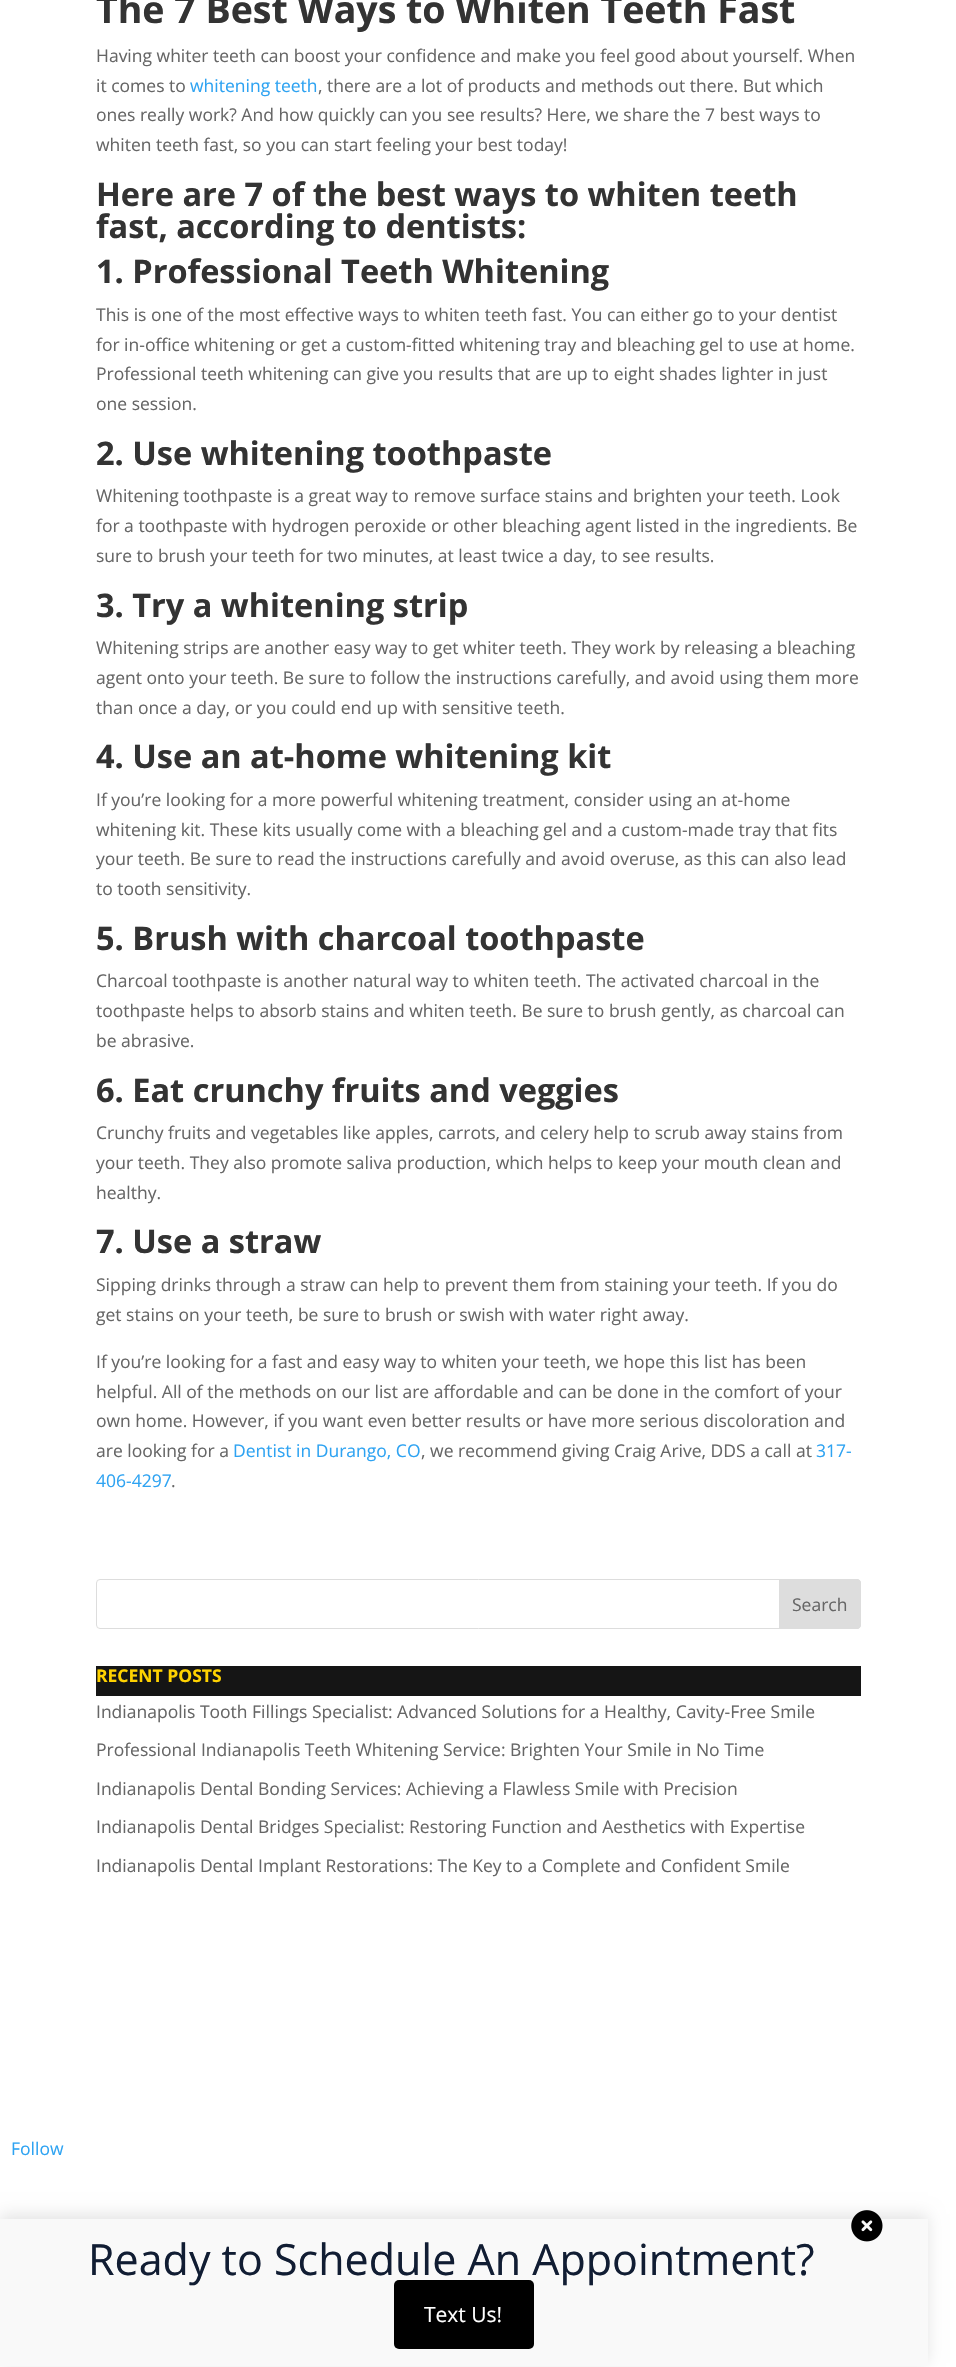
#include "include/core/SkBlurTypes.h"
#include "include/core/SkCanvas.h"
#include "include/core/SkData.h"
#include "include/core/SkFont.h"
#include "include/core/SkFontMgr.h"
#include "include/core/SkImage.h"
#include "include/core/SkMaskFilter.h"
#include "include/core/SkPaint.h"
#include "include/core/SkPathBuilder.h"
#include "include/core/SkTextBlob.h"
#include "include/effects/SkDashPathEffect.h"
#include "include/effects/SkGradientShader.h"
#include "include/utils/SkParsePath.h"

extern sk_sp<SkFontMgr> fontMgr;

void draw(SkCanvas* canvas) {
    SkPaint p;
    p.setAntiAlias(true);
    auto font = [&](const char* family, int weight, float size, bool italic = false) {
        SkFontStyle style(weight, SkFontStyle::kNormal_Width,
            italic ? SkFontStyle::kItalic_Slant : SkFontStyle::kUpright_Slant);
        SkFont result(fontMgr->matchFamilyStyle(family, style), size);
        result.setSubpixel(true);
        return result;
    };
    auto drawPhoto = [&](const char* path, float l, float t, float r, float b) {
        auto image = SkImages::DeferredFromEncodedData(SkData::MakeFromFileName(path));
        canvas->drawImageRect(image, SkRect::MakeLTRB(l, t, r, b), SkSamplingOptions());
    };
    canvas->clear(0xFFFFFFFF);
    auto font1 = font("Open Sans", 700, 37.5f);
    p.setColor(0xFF333333);
    canvas->drawString("The 7 Best Ways to Whiten Teeth Fast", 96, 23, font1, p);
    auto font2 = font("Open Sans", 400, 17.5f);
    p.setColor(0xFF666666);
    canvas->drawString("Having whiter teeth can boost your confidence and make you feel good about yourself. When", 96, 62, font2, p);
    canvas->drawString("it comes to", 96, 92, font2, p);
    p.setColor(0xFF2EA3F2);
    canvas->drawString("whitening teeth", 190, 92, font2, p);
    p.setColor(0xFF666666);
    {
        const struct { const char* s; float x, y; } items[] = {
            {", there are a lot of products and methods out there. But which", 318, 92},
            {"ones really work? And how quickly can you see results? Here, we share the 7 best ways to", 96, 121},
            {"whiten teeth fast, so you can start feeling your best today!", 96, 151},
        };
        for (auto [s, x, y] : items) {
            canvas->drawString(s, x, y, font2, p);
        }
    }
    auto font3 = font("Open Sans", 700, 32.5f);
    p.setColor(0xFF333333);
    {
        const struct { const char* s; float x, y; } items[] = {
            {"Here are 7 of the best ways to whiten teeth", 96, 206},
            {"fast, according to dentists:", 96, 238},
            {"1. Professional Teeth Whitening", 96, 283},
        };
        for (auto [s, x, y] : items) {
            canvas->drawString(s, x, y, font3, p);
        }
    }
    p.setColor(0xFF666666);
    {
        const struct { const char* s; float x, y; } items[] = {
            {"This is one of the most effective ways to whiten teeth fast. You can either go to your dentist", 96, 321},
            {"for in-office whitening or get a custom-fitted whitening tray and bleaching gel to use at home.", 96, 351},
            {"Professional teeth whitening can give you results that are up to eight shades lighter in just", 96, 380},
            {"one session.", 96, 410},
        };
        for (auto [s, x, y] : items) {
            canvas->drawString(s, x, y, font2, p);
        }
    }
    p.setColor(0xFF333333);
    canvas->drawString("2. Use whitening toothpaste", 96, 465, font3, p);
    p.setColor(0xFF666666);
    {
        const struct { const char* s; float x, y; } items[] = {
            {"Whitening toothpaste is a great way to remove surface stains and brighten your teeth. Look", 96, 502},
            {"for a toothpaste with hydrogen peroxide or other bleaching agent listed in the ingredients. Be", 96, 532},
            {"sure to brush your teeth for two minutes, at least twice a day, to see results.", 96, 562},
        };
        for (auto [s, x, y] : items) {
            canvas->drawString(s, x, y, font2, p);
        }
    }
    p.setColor(0xFF333333);
    canvas->drawString("3. Try a whitening strip", 96, 617, font3, p);
    p.setColor(0xFF666666);
    {
        const struct { const char* s; float x, y; } items[] = {
            {"Whitening strips are another easy way to get whiter teeth. They work by releasing a bleaching", 96, 654},
            {"agent onto your teeth. Be sure to follow the instructions carefully, and avoid using them more", 96, 684},
            {"than once a day, or you could end up with sensitive teeth.", 96, 714},
        };
        for (auto [s, x, y] : items) {
            canvas->drawString(s, x, y, font2, p);
        }
    }
    p.setColor(0xFF333333);
    canvas->drawString("4. Use an at-home whitening kit", 96, 768, font3, p);
    p.setColor(0xFF666666);
    {
        const struct { const char* s; float x, y; } items[] = {
            {"If you’re looking for a more powerful whitening treatment, consider using an at-home", 96, 806},
            {"whitening kit. These kits usually come with a bleaching gel and a custom-made tray that fits", 96, 836},
            {"your teeth. Be sure to read the instructions carefully and avoid overuse, as this can also lead", 96, 865},
            {"to tooth sensitivity.", 96, 895},
        };
        for (auto [s, x, y] : items) {
            canvas->drawString(s, x, y, font2, p);
        }
    }
    p.setColor(0xFF333333);
    canvas->drawString("5. Brush with charcoal toothpaste", 96, 950, font3, p);
    p.setColor(0xFF666666);
    {
        const struct { const char* s; float x, y; } items[] = {
            {"Charcoal toothpaste is another natural way to whiten teeth. The activated charcoal in the", 96, 987},
            {"toothpaste helps to absorb stains and whiten teeth. Be sure to brush gently, as charcoal can", 96, 1017},
            {"be abrasive.", 96, 1047},
        };
        for (auto [s, x, y] : items) {
            canvas->drawString(s, x, y, font2, p);
        }
    }
    p.setColor(0xFF333333);
    canvas->drawString("6. Eat crunchy fruits and veggies", 96, 1102, font3, p);
    p.setColor(0xFF666666);
    {
        const struct { const char* s; float x, y; } items[] = {
            {"Crunchy fruits and vegetables like apples, carrots, and celery help to scrub away stains from", 96, 1139},
            {"your teeth. They also promote saliva production, which helps to keep your mouth clean and", 96, 1169},
            {"healthy.", 96, 1199},
        };
        for (auto [s, x, y] : items) {
            canvas->drawString(s, x, y, font2, p);
        }
    }
    p.setColor(0xFF333333);
    canvas->drawString("7. Use a straw", 96, 1253, font3, p);
    p.setColor(0xFF666666);
    {
        const struct { const char* s; float x, y; } items[] = {
            {"Sipping drinks through a straw can help to prevent them from staining your teeth. If you do", 96, 1291},
            {"get stains on your teeth, be sure to brush or swish with water right away.", 96, 1321},
            {"If you’re looking for a fast and easy way to whiten your teeth, we hope this list has been", 96, 1368},
            {"helpful. All of the methods on our list are affordable and can be done in the comfort of your", 96, 1398},
            {"own home. However, if you want even better results or have more serious discoloration and", 96, 1427},
            {"are looking for a", 96, 1457},
        };
        for (auto [s, x, y] : items) {
            canvas->drawString(s, x, y, font2, p);
        }
    }
    p.setColor(0xFF2EA3F2);
    canvas->drawString("Dentist in Durango, CO", 233, 1457, font2, p);
    p.setColor(0xFF666666);
    canvas->drawString(", we recommend giving Craig Arive, DDS a call at", 421, 1457, font2, p);
    p.setColor(0xFF2EA3F2);
    canvas->drawString("317-", 816, 1457, font2, p);
    canvas->drawString("406-4297", 96, 1487, font2, p);
    p.setColor(0xFF666666);
    canvas->drawString(".", 171, 1487, font2, p);
    p.setStyle(SkPaint::kStroke_Style);
    p.setStrokeWidth(1);
    p.setColor(0xFFDDDDDD);
    canvas->drawRoundRect(SkRect::MakeLTRB(96.5f, 1579.5f, 860.5f, 1628.5f), 3.5f, 3.5f, p);
    p.setStyle(SkPaint::kFill_Style);
    canvas->drawPath(SkPathBuilder().moveTo(779.5f, 1579.5f).lineTo(857, 1579.5f).cubicTo(859, 1579.5f, 860.5f, 1581, 860.5f, 1583).lineTo(860.5f, 1625).cubicTo(860.5f, 1627, 859, 1628.5f, 857, 1628.5f).lineTo(779.5f, 1628.5f).close().detach(), p);
    p.setStyle(SkPaint::kStroke_Style);
    canvas->drawPath(SkPathBuilder().moveTo(779.5f, 1579.5f).lineTo(857, 1579.5f).cubicTo(859, 1579.5f, 860.5f, 1581, 860.5f, 1583).lineTo(860.5f, 1625).cubicTo(860.5f, 1627, 859, 1628.5f, 857, 1628.5f).lineTo(779.5f, 1628.5f).close().detach(), p);
    p.setStyle(SkPaint::kFill_Style);
    p.setColor(0xFF666666);
    canvas->drawString("Search", 792, 1611, font2, p);
    p.setColor(0xFF151515);
    canvas->drawRect(SkRect::MakeLTRB(96, 1666, 861, 1696), p);
    auto font4 = font("Open Sans", 700, 17.5f);
    p.setColor(0xFFFFD200);
    canvas->drawString("RECENT POSTS", 96, 1682, font4, p);
    p.setColor(0xFF666666);
    {
        const struct { const char* s; float x, y; } items[] = {
            {"Indianapolis Tooth Fillings Specialist: Advanced Solutions for a Healthy, Cavity-Free Smile", 96, 1718},
            {"Professional Indianapolis Teeth Whitening Service: Brighten Your Smile in No Time", 96, 1756},
            {"Indianapolis Dental Bonding Services: Achieving a Flawless Smile with Precision", 96, 1795},
            {"Indianapolis Dental Bridges Specialist: Restoring Function and Aesthetics with Expertise", 96, 1833},
            {"Indianapolis Dental Implant Restorations: The Key to a Complete and Confident Smile", 96, 1872},
        };
        for (auto [s, x, y] : items) {
            canvas->drawString(s, x, y, font2, p);
        }
    }
    p.setColor(0xFF2EA3F2);
    canvas->drawString("Follow", 11, 2155, font2, p);
    p.setColor(0x1A000000);
    p.setMaskFilter(SkMaskFilter::MakeBlur(kNormal_SkBlurStyle, 7.5f));
    canvas->drawRect(SkRect::MakeLTRB(0, 2214, 928, 2363), p);
    p.setMaskFilter(nullptr);
    p.setColor(0xFFF9F9F9);
    canvas->drawRect(SkRect::MakeLTRB(0, 2219, 928, 2366), p);
    drawPhoto("media/1.png", 851, 2210, 883, 2242);
    auto font5 = font("Open Sans", 400, 43);
    p.setColor(0xFF111D33);
    canvas->drawString("Ready to Schedule An Appointment?", 88, 2275, font5, p);
    p.setColor(0xFF000000);
    canvas->drawRoundRect(SkRect::MakeLTRB(394, 2280, 534, 2349), 5, 5, p);
    auto font6 = font("Open Sans", 400, 21);
    p.setColor(0xFFFFFFFF);
    canvas->drawString("Text Us!", 424, 2322, font6, p);
}
